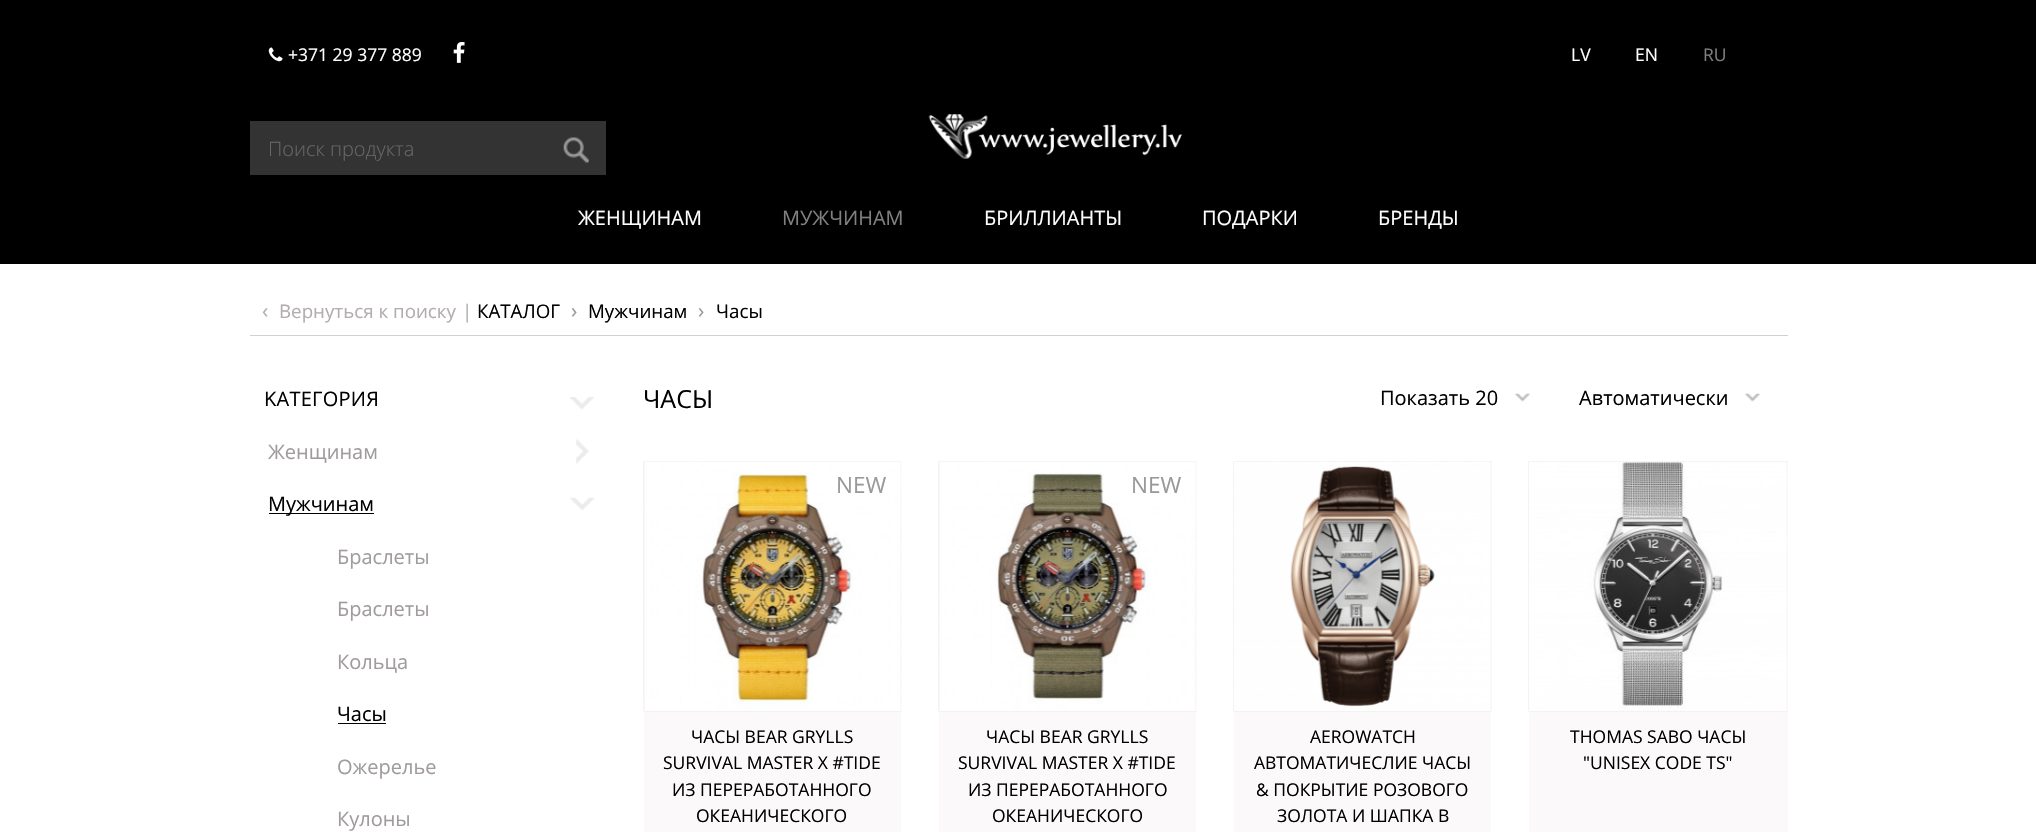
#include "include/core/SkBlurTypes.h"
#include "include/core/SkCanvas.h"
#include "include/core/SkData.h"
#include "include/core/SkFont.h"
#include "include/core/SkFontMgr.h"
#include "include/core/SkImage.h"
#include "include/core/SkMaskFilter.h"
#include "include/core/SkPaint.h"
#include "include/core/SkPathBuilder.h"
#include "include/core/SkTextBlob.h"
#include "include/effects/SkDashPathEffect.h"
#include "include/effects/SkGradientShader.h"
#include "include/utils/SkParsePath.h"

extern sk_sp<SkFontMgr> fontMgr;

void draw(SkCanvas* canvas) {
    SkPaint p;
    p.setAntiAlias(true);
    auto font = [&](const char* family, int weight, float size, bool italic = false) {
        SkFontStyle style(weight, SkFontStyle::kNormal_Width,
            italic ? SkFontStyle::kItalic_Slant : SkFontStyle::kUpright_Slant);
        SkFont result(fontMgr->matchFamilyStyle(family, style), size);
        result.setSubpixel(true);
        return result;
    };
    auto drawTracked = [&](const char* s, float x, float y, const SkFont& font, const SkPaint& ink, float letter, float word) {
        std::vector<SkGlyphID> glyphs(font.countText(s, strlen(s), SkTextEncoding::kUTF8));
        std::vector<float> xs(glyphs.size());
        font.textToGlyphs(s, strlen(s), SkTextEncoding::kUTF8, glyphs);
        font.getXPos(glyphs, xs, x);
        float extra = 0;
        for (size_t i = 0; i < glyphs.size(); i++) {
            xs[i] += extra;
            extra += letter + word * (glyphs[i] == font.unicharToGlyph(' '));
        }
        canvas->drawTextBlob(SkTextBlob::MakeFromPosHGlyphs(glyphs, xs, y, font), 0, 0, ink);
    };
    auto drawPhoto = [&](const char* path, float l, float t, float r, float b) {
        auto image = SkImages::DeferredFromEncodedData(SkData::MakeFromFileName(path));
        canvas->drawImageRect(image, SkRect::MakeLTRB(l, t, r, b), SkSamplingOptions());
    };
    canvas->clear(0xFFFFFFFF);
    p.setColor(0xFF000000);
    canvas->drawRect(SkRect::MakeLTRB(0, 0, 2036, 264), p);
    drawPhoto("media/1.png", 268, 47, 283, 62);
    auto font1 = font("Open Sans", 400, 17.5f);
    p.setColor(0xFFFFFFFF);
    canvas->drawString("+371 29 377 889", 288, 61, font1, p);
    drawPhoto("media/2.png", 453, 42, 465, 63);
    canvas->drawString("LV", 1571, 61, font1, p);
    canvas->drawString("EN", 1635, 61, font1, p);
    p.setColor(0xFF808080);
    canvas->drawString("RU", 1703, 61, font1, p);
    p.setColor(0xFF333333);
    canvas->drawRect(SkRect::MakeLTRB(250, 121, 606, 175), p);
    auto font2 = font("Open Sans", 300, 20);
    p.setColor(0xFF666666);
    canvas->drawString("Поиск продукта", 268, 156, font2, p);
    drawPhoto("media/3.png", 563, 137, 589, 163);
    drawPhoto("media/4.png", 928, 114, 1182, 159);
    auto font3 = font("Open Sans", 400, 20);
    p.setColor(0xFFFFFFFF);
    canvas->drawString("ЖЕНЩИНАМ", 578, 225, font3, p);
    p.setColor(0xFF808080);
    canvas->drawString("МУЖЧИНАМ", 782, 225, font3, p);
    p.setColor(0xFFFFFFFF);
    {
        const struct { const char* s; float x, y; } items[] = {
            {"БРИЛЛИАНТЫ", 984, 225},
            {"ПОДАРКИ", 1202, 225},
            {"БРЕНДЫ", 1378, 225},
        };
        for (auto [s, x, y] : items) {
            canvas->drawString(s, x, y, font3, p);
        }
    }
    p.setColor(0xFFCED1D4);
    canvas->drawRect(SkRect::MakeLTRB(250, 335, 1788, 336), p);
    auto font4 = font("Open Sans", 400, 21);
    p.setColor(0xFFB4ADAD);
    canvas->drawString("‹", 262, 318, font4, p);
    auto font5 = font("Open Sans", 400, 18.75f);
    canvas->drawString("Вернуться к поиску", 279, 318, font5, p);
    canvas->drawString("|", 462, 318, font5, p);
    p.setColor(0xFF000000);
    canvas->drawString("КАТАЛОГ", 477, 318, font5, p);
    p.setColor(0xFF999999);
    canvas->drawString("›", 571, 318, font4, p);
    p.setColor(0xFF000000);
    canvas->drawString("Мужчинам", 588, 318, font5, p);
    p.setColor(0xFF999999);
    canvas->drawString("›", 698, 318, font4, p);
    p.setColor(0xFF000000);
    canvas->drawString("Часы", 716, 318, font5, p);
    drawTracked("KАТЕГОРИЯ", 264, 406, font3, p, 0.25f, 0);
    drawPhoto("media/5.png", 569, 397, 595, 410);
    p.setColor(0xFFA19C9C);
    canvas->drawString("Женщинам", 268, 459, font3, p);
    drawPhoto("media/6.png", 576, 439, 589, 464);
    p.setColor(0xFF000000);
    canvas->drawRect(SkRect::MakeLTRB(269, 513, 374, 514), p);
    canvas->drawString("Мужчинам", 268, 511, font3, p);
    drawPhoto("media/7.png", 570, 497, 595, 510);
    p.setColor(0xFFA19C9C);
    {
        const struct { const char* s; float x, y; } items[] = {
            {"Браслеты", 337, 564},
            {"Браслеты", 337, 616},
            {"Кольца", 337, 669},
        };
        for (auto [s, x, y] : items) {
            canvas->drawString(s, x, y, font3, p);
        }
    }
    p.setColor(0xFF000000);
    canvas->drawString("Часы", 337, 721, font3, p);
    canvas->drawRect(SkRect::MakeLTRB(338, 723, 386, 724), p);
    p.setColor(0xFFA19C9C);
    canvas->drawString("Oжерелье", 337, 774, font3, p);
    canvas->drawString("Кулоны", 337, 826, font3, p);
    auto font6 = font("Open Sans", 400, 25);
    p.setColor(0xFF000000);
    canvas->drawString("ЧАСЫ", 643, 408, font6, p);
    canvas->drawString("Показать 20", 1380, 405, font3, p);
    drawPhoto("media/8.png", 1515, 393, 1530, 402);
    canvas->drawString("Aвтоматически", 1579, 405, font3, p);
    drawPhoto("media/9.png", 1745, 393, 1760, 402);
    p.setColor(0xFFFBF9F9);
    canvas->drawRect(SkRect::MakeLTRB(644, 461, 901, 832), p);
    drawPhoto("media/10.png", 643, 461, 902, 712);
    drawPhoto("media/11.png", 644, 461, 902, 712);
    auto font7 = font("Open Sans", 400, 22.5f);
    p.setColor(0xFF999999);
    canvas->drawString("NEW", 836, 493, font7, p);
    p.setColor(0xFF000000);
    {
        const struct { const char* s; float x, y; } items[] = {
            {"ЧАСЫ BEAR GRYLLS", 691, 743},
            {"SURVIVAL MASTER X #TIDE", 663, 769},
            {"ИЗ ПЕРЕРАБОТАННОГО", 672, 796},
            {"ОКЕАНИЧЕСКОГО", 696, 822},
        };
        for (auto [s, x, y] : items) {
            canvas->drawString(s, x, y, font1, p);
        }
    }
    p.setColor(0xFFFBF9F9);
    canvas->drawRect(SkRect::MakeLTRB(939, 461, 1196, 832), p);
    drawPhoto("media/12.png", 938, 461, 1197, 712);
    drawPhoto("media/13.png", 939, 461, 1197, 712);
    p.setColor(0xFF999999);
    canvas->drawString("NEW", 1131, 493, font7, p);
    p.setColor(0xFF000000);
    {
        const struct { const char* s; float x, y; } items[] = {
            {"ЧАСЫ BEAR GRYLLS", 986, 743},
            {"SURVIVAL MASTER X #TIDE", 958, 769},
            {"ИЗ ПЕРЕРАБОТАННОГО", 968, 796},
            {"ОКЕАНИЧЕСКОГО", 992, 822},
        };
        for (auto [s, x, y] : items) {
            canvas->drawString(s, x, y, font1, p);
        }
    }
    p.setColor(0xFFFBF9F9);
    canvas->drawRect(SkRect::MakeLTRB(1234, 461, 1491, 832), p);
    drawPhoto("media/10.png", 1233, 461, 1492, 712);
    drawPhoto("media/14.png", 1234, 461, 1492, 712);
    p.setColor(0xFF000000);
    {
        const struct { const char* s; float x, y; } items[] = {
            {"AEROWATCH", 1310, 743},
            {"АВТОМАТИЧЕСЛИЕ ЧАСЫ", 1254, 769},
            {"& ПОКРЫТИЕ РОЗОВОГО", 1256, 796},
            {"ЗОЛОТА И ШАПКА В", 1277, 822},
        };
        for (auto [s, x, y] : items) {
            canvas->drawString(s, x, y, font1, p);
        }
    }
    p.setColor(0xFFFBF9F9);
    canvas->drawRect(SkRect::MakeLTRB(1529, 461, 1788, 832), p);
    drawPhoto("media/15.png", 1528, 461, 1788, 712);
    drawPhoto("media/16.png", 1529, 461, 1788, 712);
    p.setColor(0xFF000000);
    canvas->drawString("THOMAS SABO ЧАСЫ", 1570, 743, font1, p);
    canvas->drawString("\"UNISEX CODE TS\"", 1583, 769, font1, p);
}
